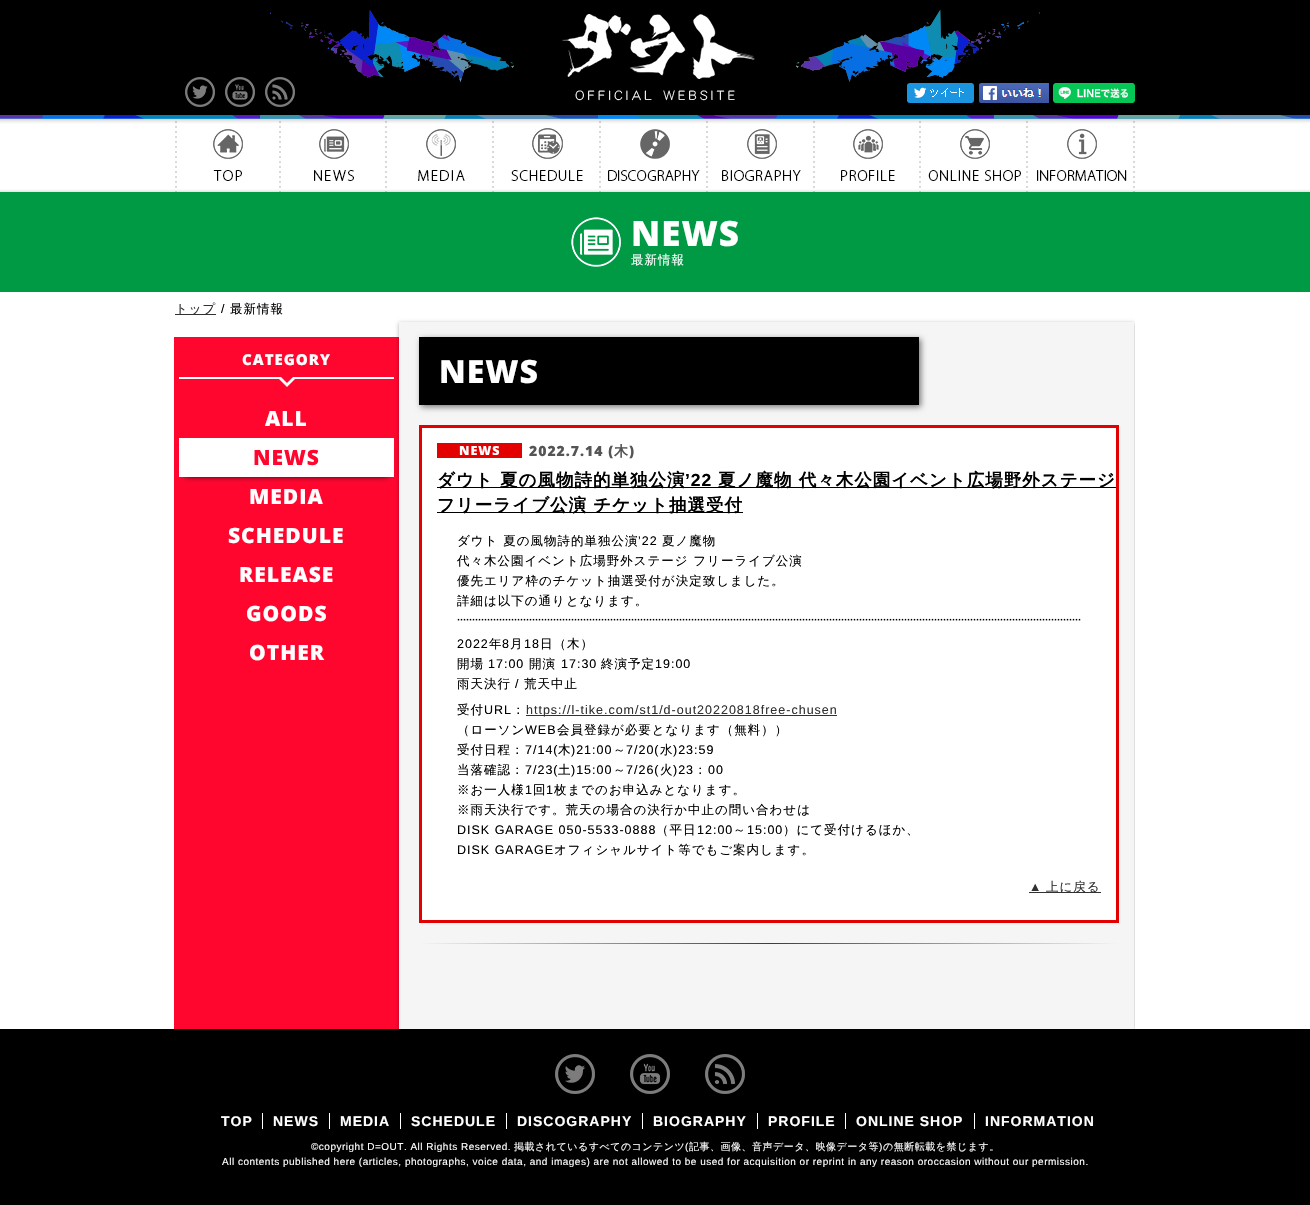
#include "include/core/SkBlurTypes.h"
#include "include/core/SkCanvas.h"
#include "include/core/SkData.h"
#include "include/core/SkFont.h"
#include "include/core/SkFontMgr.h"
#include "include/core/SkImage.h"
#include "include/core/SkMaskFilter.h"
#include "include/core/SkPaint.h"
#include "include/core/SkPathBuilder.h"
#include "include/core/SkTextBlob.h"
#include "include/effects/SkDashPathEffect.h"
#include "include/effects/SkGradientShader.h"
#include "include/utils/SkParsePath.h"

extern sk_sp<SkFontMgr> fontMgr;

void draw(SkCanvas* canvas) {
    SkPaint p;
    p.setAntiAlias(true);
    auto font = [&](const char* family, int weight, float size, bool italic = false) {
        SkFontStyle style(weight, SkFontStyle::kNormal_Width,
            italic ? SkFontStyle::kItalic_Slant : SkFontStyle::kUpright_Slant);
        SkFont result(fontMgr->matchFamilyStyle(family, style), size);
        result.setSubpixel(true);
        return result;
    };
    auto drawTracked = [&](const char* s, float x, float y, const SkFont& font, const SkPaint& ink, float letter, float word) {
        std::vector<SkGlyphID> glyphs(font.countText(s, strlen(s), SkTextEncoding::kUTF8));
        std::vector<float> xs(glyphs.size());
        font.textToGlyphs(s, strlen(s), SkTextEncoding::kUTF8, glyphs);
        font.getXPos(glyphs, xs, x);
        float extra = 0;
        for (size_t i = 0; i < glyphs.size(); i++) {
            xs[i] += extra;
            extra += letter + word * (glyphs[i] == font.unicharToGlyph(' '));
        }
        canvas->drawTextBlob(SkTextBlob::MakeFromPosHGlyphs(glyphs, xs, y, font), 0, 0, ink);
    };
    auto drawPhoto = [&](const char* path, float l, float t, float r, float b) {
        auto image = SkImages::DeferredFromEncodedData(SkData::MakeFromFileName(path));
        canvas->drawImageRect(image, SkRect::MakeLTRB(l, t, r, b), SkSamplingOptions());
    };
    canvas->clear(0xFF000000);
    p.setColor(0xFFFFFFFF);
    canvas->drawRect(SkRect::MakeLTRB(0, 292, 1310, 1029), p);
    drawPhoto("media/1.png", 270, 10, 1040, 101);
    drawPhoto("media/2.png", 185, 77, 215, 107);
    drawPhoto("media/3.png", 225, 77, 255, 107);
    drawPhoto("media/4.png", 265, 77, 295, 107);
    drawPhoto("media/5.png", 907, 83, 974, 103);
    drawPhoto("media/6.png", 979, 83, 1049, 103);
    drawPhoto("media/7.png", 1053, 83, 1135, 103);
    drawPhoto("media/8.png", 0, 115, 1310, 119);
    drawPhoto("media/9.png", 0, 119, 1310, 192);
    drawPhoto("media/10.png", 175, 121, 280, 192);
    drawPhoto("media/11.png", 280, 121, 386, 192);
    drawPhoto("media/12.png", 386, 121, 493, 192);
    drawPhoto("media/13.png", 493, 121, 600, 192);
    drawPhoto("media/14.png", 600, 121, 707, 192);
    drawPhoto("media/15.png", 707, 121, 814, 192);
    drawPhoto("media/16.png", 814, 121, 920, 192);
    drawPhoto("media/17.png", 920, 121, 1027, 192);
    drawPhoto("media/18.png", 1027, 121, 1135, 192);
    p.setColor(0xFF009944);
    canvas->drawRect(SkRect::MakeLTRB(0, 192, 1310, 292), p);
    drawPhoto("media/19.png", 571, 217, 621, 267);
    auto font1 = font("Open Sans", 800, 35);
    p.setColor(0xFFFFFFFF);
    drawTracked("NEWS", 631, 246, font1, p, 1, 0);
    auto font2 = font("WenQuanYi Zen Hei", 500, 12.5f);
    drawTracked("最新情報", 631, 264, font2, p, 1, 0);
    p.setColor(0xFF313131);
    canvas->drawRect(SkRect::MakeLTRB(175, 314, 216, 315), p);
    drawTracked("トップ", 175, 313, font2, p, 1, 0);
    auto font3 = font("Liberation Sans", 400, 12.5f);
    p.setColor(0xFF000000);
    drawTracked("/", 221, 313, font3, p, 1, 0);
    drawTracked("最新情報", 230, 313, font2, p, 1, 0);
    p.setColor(0xFFFF062F);
    canvas->drawRect(SkRect::MakeLTRB(174, 337, 399, 1029), p);
    p.setColor(0xFFFFFFFF);
    canvas->drawRect(SkRect::MakeLTRB(179, 377, 394, 379), p);
    auto font4 = font("Open Sans", 800, 15);
    drawTracked("CATEGORY", 242, 365, font4, p, 1, 0);
    canvas->drawPath(SkPathBuilder().moveTo(277, 377).lineTo(297, 377).lineTo(287, 387).close().detach(), p);
    p.setColor(0xFFFF062F);
    canvas->drawPath(SkPathBuilder().moveTo(277, 373).lineTo(297, 373).lineTo(287, 383).close().detach(), p);
    auto font5 = font("Open Sans", 800, 21);
    p.setColor(0xFFFFFFFF);
    drawTracked("ALL", 265, 426, font5, p, 1, 0);
    p.setColor(0xFF000000);
    p.setMaskFilter(SkMaskFilter::MakeBlur(kNormal_SkBlurStyle, 3));
    canvas->drawRect(SkRect::MakeLTRB(185, 449, 388, 476), p);
    p.setMaskFilter(nullptr);
    p.setColor(0xFFFFFFFF);
    canvas->drawRect(SkRect::MakeLTRB(179, 438, 394, 477), p);
    p.setColor(0xFFFF062F);
    drawTracked("NEWS", 253, 465, font5, p, 1, 0);
    p.setColor(0xFFFFFFFF);
    {
        const struct { const char* s; float x, y; } items[] = {
            {"MEDIA", 249, 504},
            {"SCHEDULE", 228, 543},
            {"RELEASE", 239, 582},
            {"GOODS", 246, 621},
            {"OTHER", 249, 660},
        };
        for (auto [s, x, y] : items) {
            drawTracked(s, x, y, font5, p, 1, 0);
        }
    }
    canvas->save();
    canvas->clipRect(SkRect::MakeLTRB(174, 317, 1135, 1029));
    p.setColor(0x4D000000);
    p.setMaskFilter(SkMaskFilter::MakeBlur(kNormal_SkBlurStyle, 2));
    canvas->drawRect(SkRect::MakeLTRB(399, 323, 1134, 1030), p);
    p.setMaskFilter(nullptr);
    canvas->restore();
    p.setColor(0xFFF5F5F5);
    canvas->drawRect(SkRect::MakeLTRB(399, 322, 1134, 1029), p);
    p.setColor(0xFF777777);
    p.setMaskFilter(SkMaskFilter::MakeBlur(kNormal_SkBlurStyle, 3));
    canvas->drawRect(SkRect::MakeLTRB(421, 339, 921, 407), p);
    p.setMaskFilter(nullptr);
    p.setColor(0xFF000000);
    canvas->drawRect(SkRect::MakeLTRB(419, 337, 919, 405), p);
    auto font6 = font("Open Sans", 800, 32);
    p.setColor(0xFFFFFFFF);
    drawTracked("NEWS", 439, 383, font6, p, 1, 0);
    canvas->drawRect(SkRect::MakeLTRB(420.5f, 426.5f, 1117.5f, 921.5f), p);
    p.setStyle(SkPaint::kStroke_Style);
    p.setStrokeWidth(3);
    p.setColor(0xFFE30000);
    canvas->drawRect(SkRect::MakeLTRB(420.5f, 426.5f, 1117.5f, 921.5f), p);
    p.setStyle(SkPaint::kFill_Style);
    canvas->drawRect(SkRect::MakeLTRB(437, 443, 522, 458), p);
    auto font7 = font("Open Sans", 800, 12.5f);
    p.setColor(0xFFFFFFFF);
    drawTracked("NEWS", 459, 455, font7, p, 1, 0);
    auto font8 = font("Open Sans", 800, 14);
    p.setColor(0xFF555555);
    drawTracked("2022.7.14 (", 529, 456, font8, p, 1, 0);
    auto font9 = font("WenQuanYi Zen Hei", 700, 14);
    drawTracked("木", 614, 456, font9, p, 1, 0);
    drawTracked(")", 629, 456, font8, p, 1, 0);
    p.setColor(0xFF000000);
    canvas->drawRect(SkRect::MakeLTRB(437, 487, 1116, 488), p);
    auto font10 = font("WenQuanYi Zen Hei", 700, 17.5f);
    drawTracked("ダウト 夏の風物詩的単独公演", 437, 486, font10, p, 1, 0);
    auto font11 = font("Liberation Sans", 700, 17.5f);
    drawTracked("’22", 685, 486, font11, p, 1, 0);
    drawTracked("夏ノ魔物 代々木公園イベント広場野外ステージ", 718, 486, font10, p, 1, 0);
    canvas->drawRect(SkRect::MakeLTRB(437, 512, 743, 513), p);
    drawTracked("フリーライブ公演 チケット抽選受付", 437, 511, font10, p, 1, 0);
    drawTracked("ダウト 夏の風物詩的単独公演", 457, 545, font2, p, 1, 0);
    drawTracked("’22", 638, 545, font3, p, 1, 0);
    {
        const struct { const char* s; float x, y; } items[] = {
            {"夏ノ魔物", 662, 545},
            {"代々木公園イベント広場野外ステージ フリーライブ公演", 457, 565},
            {"優先エリア枠のチケット抽選受付が決定致しました。", 457, 585},
            {"詳細は以下の通りとなります。", 457, 605},
        };
        for (auto [s, x, y] : items) {
            drawTracked(s, x, y, font2, p, 1, 0);
        }
    }
    drawPhoto("media/20.png", 457, 618, 1081, 621);
    drawTracked("2022", 457, 648, font3, p, 1, 0);
    drawTracked("年", 489, 648, font2, p, 1, 0);
    drawTracked("8", 502, 648, font3, p, 1, 0);
    drawTracked("月", 510, 648, font2, p, 1, 0);
    drawTracked("18", 524, 648, font3, p, 1, 0);
    drawTracked("日（木）", 540, 648, font2, p, 1, 0);
    drawTracked("開場", 457, 668, font2, p, 1, 0);
    drawTracked("17:00", 488, 668, font3, p, 1, 0);
    drawTracked("開演", 529, 668, font2, p, 1, 0);
    drawTracked("17:30", 561, 668, font3, p, 1, 0);
    drawTracked("終演予定", 601, 668, font2, p, 1, 0);
    drawTracked("19:00", 655, 668, font3, p, 1, 0);
    drawTracked("雨天決行", 457, 688, font2, p, 1, 0);
    drawTracked("/", 515, 688, font3, p, 1, 0);
    drawTracked("荒天中止", 524, 688, font2, p, 1, 0);
    drawTracked("受付", 457, 714, font2, p, 1, 0);
    drawTracked("URL", 484, 714, font3, p, 1, 0);
    drawTracked("：", 512, 714, font2, p, 1, 0);
    p.setColor(0xFF313131);
    canvas->drawRect(SkRect::MakeLTRB(526, 715, 837, 716), p);
    drawTracked("https://l-tike.com/st1/d-out20220818free-chusen", 526, 714, font3, p, 1, 0);
    p.setColor(0xFF000000);
    drawTracked("（ローソン", 457, 734, font2, p, 1, 0);
    drawTracked("WEB", 525, 734, font3, p, 1, 0);
    drawTracked("会員登録が必要となります（無料））", 557, 734, font2, p, 1, 0);
    drawTracked("受付日程：", 457, 754, font2, p, 1, 0);
    drawTracked("7/14(", 525, 754, font3, p, 1, 0);
    drawTracked("木", 558, 754, font2, p, 1, 0);
    drawTracked(")21:00", 571, 754, font3, p, 1, 0);
    drawTracked("～", 613, 754, font2, p, 1, 0);
    drawTracked("7/20(", 626, 754, font3, p, 1, 0);
    drawTracked("水", 660, 754, font2, p, 1, 0);
    drawTracked(")23:59", 673, 754, font3, p, 1, 0);
    drawTracked("当落確認：", 457, 774, font2, p, 1, 0);
    drawTracked("7/23(", 525, 774, font3, p, 1, 0);
    drawTracked("土", 558, 774, font2, p, 1, 0);
    drawTracked(")15:00", 571, 774, font3, p, 1, 0);
    drawTracked("～", 613, 774, font2, p, 1, 0);
    drawTracked("7/26(", 626, 774, font3, p, 1, 0);
    drawTracked("火", 660, 774, font2, p, 1, 0);
    drawTracked(")23", 673, 774, font3, p, 1, 0);
    drawTracked("：", 694, 774, font2, p, 1, 0);
    drawTracked("00", 708, 774, font3, p, 1, 0);
    drawTracked("※お一人様", 457, 794, font2, p, 1, 0);
    drawTracked("1", 525, 794, font3, p, 1, 0);
    drawTracked("回", 533, 794, font2, p, 1, 0);
    drawTracked("1", 546, 794, font3, p, 1, 0);
    drawTracked("枚までのお申込みとなります。", 554, 794, font2, p, 1, 0);
    drawTracked("※雨天決行です。荒天の場合の決行か中止の問い合わせは", 457, 814, font2, p, 1, 0);
    drawTracked("DISK GARAGE 050-5533-0888", 457, 834, font3, p, 1, 0);
    drawTracked("（平日", 656, 834, font2, p, 1, 0);
    drawTracked("12:00", 697, 834, font3, p, 1, 0);
    drawTracked("～", 733, 834, font2, p, 1, 0);
    drawTracked("15:00", 747, 834, font3, p, 1, 0);
    drawTracked("）にて受付けるほか、", 783, 834, font2, p, 1, 0);
    drawTracked("DISK GARAGE", 457, 854, font3, p, 1, 0);
    drawTracked("オフィシャルサイト等でもご案内します。", 554, 854, font2, p, 1, 0);
    p.setColor(0xFF313131);
    drawTracked("▲", 1029, 891, font3, p, 1, 0);
    canvas->drawRect(SkRect::MakeLTRB(1029, 892, 1101, 893), p);
    drawTracked("上に戻る", 1046, 891, font2, p, 1, 0);
    {
        const SkColor colors[] = {0xFFF5F5F5, 0xFF3D3D3D, 0xFFF5F5F5};
        const float stops[] = {0, 0.5f, 1};
        const SkPoint ends[] = {{419, 944}, {1119, 944}};
        p.setShader(SkGradientShader::MakeLinear(ends, colors, stops, 3, SkTileMode::kClamp));
        p.setAlpha(255);
    }
    canvas->drawRect(SkRect::MakeLTRB(419, 943, 1119, 944), p);
    drawPhoto("media/21.png", 555, 1054, 595, 1094);
    drawPhoto("media/22.png", 630, 1054, 670, 1094);
    drawPhoto("media/23.png", 705, 1054, 745, 1094);
    auto font12 = font("Liberation Sans", 700, 14);
    p.setShader(nullptr);
    p.setColor(0xFFFFFFFF);
    drawTracked("TOP", 221, 1126, font12, p, 1, 0);
    drawTracked("NEWS", 273, 1126, font12, p, 1, 0);
    canvas->drawRect(SkRect::MakeLTRB(262, 1113, 263, 1129), p);
    drawTracked("MEDIA", 340, 1126, font12, p, 1, 0);
    canvas->drawRect(SkRect::MakeLTRB(329, 1113, 330, 1129), p);
    drawTracked("SCHEDULE", 411, 1126, font12, p, 1, 0);
    canvas->drawRect(SkRect::MakeLTRB(400, 1113, 401, 1129), p);
    drawTracked("DISCOGRAPHY", 517, 1126, font12, p, 1, 0);
    canvas->drawRect(SkRect::MakeLTRB(506, 1113, 507, 1129), p);
    drawTracked("BIOGRAPHY", 653, 1126, font12, p, 1, 0);
    canvas->drawRect(SkRect::MakeLTRB(642, 1113, 643, 1129), p);
    drawTracked("PROFILE", 768, 1126, font12, p, 1, 0);
    canvas->drawRect(SkRect::MakeLTRB(757, 1113, 758, 1129), p);
    drawTracked("ONLINE SHOP", 856, 1126, font12, p, 1, 0);
    canvas->drawRect(SkRect::MakeLTRB(845, 1113, 846, 1129), p);
    drawTracked("INFORMATION", 985, 1126, font12, p, 1, 0);
    canvas->drawRect(SkRect::MakeLTRB(974, 1113, 975, 1129), p);
    auto font13 = font("Liberation Sans", 400, 10);
    drawTracked("©copyright D=OUT. All Rights Reserved.", 311, 1150, font13, p, 0.5f, 0);
    auto font14 = font("WenQuanYi Zen Hei", 500, 10);
    drawTracked("掲載されているすべてのコンテンツ", 514, 1150, font14, p, 0.5f, 0);
    drawTracked("(", 685, 1150, font13, p, 0.5f, 0);
    drawTracked("記事、画像、音声データ、映像データ等", 689, 1150, font14, p, 0.5f, 0);
    drawTracked(")", 879, 1150, font13, p, 0.5f, 0);
    drawTracked("の無断転載を禁じます。", 883, 1150, font14, p, 0.5f, 0);
    drawTracked("All contents published here (articles, photographs, voice data, and images) are not allowed to be used for acquisition or reprint in any reason oroccasion without our permission.", 222, 1165, font13, p, 0.5f, 0);
}
